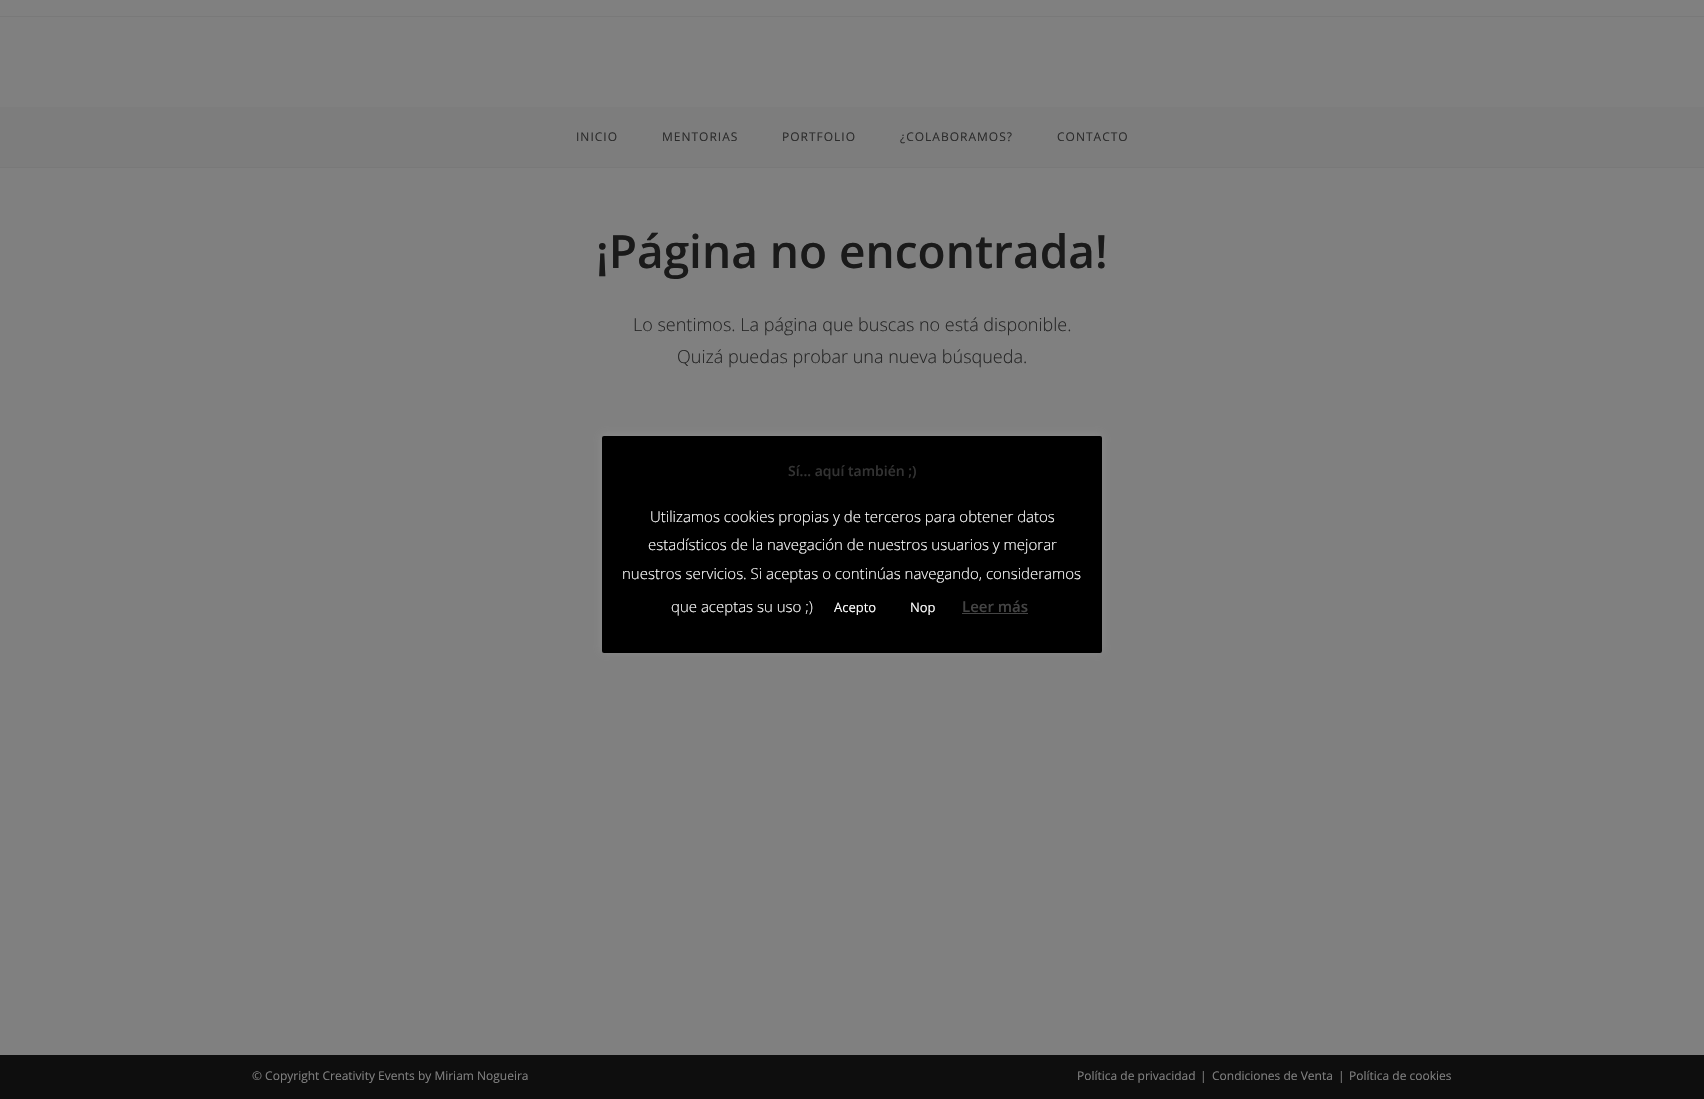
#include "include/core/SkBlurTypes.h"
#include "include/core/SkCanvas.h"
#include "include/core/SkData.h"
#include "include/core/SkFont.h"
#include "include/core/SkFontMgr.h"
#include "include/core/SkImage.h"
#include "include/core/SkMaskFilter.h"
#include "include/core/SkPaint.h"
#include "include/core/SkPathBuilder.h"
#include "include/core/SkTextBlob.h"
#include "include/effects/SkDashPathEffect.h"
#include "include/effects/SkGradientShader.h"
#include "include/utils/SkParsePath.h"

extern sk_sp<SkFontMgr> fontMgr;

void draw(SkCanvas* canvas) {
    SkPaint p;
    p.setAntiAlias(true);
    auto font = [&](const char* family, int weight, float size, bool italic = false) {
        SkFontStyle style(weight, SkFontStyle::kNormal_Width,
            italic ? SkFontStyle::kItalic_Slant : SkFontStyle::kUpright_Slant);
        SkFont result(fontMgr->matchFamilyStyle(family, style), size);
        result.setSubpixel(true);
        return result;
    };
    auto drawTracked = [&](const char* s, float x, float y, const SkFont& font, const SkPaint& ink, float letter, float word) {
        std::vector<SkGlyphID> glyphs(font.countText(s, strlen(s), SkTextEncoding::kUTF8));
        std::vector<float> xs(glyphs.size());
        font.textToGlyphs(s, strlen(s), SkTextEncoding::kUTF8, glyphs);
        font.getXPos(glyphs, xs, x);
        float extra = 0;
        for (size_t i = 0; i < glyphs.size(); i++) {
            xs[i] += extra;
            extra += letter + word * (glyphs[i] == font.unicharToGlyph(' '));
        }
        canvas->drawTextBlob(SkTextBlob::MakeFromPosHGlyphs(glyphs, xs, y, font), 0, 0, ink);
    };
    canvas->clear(0xFF808080);
    {
        const struct { float l, t, r, b; SkColor color; } items[] = {
            {0, 16, 1704, 17, 0xFF797979},
            {0, 167, 1704, 168, 0xFF797979},
            {0, 107, 1704, 167, 0xFF7D7D7D},
        };
        for (auto [l, t, r, b, color] : items) {
            p.setColor(color);
            canvas->drawRect(SkRect::MakeLTRB(l, t, r, b), p);
        }
    }
    auto font1 = font("Open Sans", 400, 12);
    p.setColor(0xFF2B2B2B);
    {
        const struct { const char* s; float x, y; } items[] = {
            {"INICIO", 576, 141},
            {"MENTORIAS", 662, 141},
            {"PORTFOLIO", 782, 141},
            {"¿COLABORAMOS?", 900, 141},
            {"CONTACTO", 1057, 141},
        };
        for (auto [s, x, y] : items) {
            drawTracked(s, x, y, font1, p, 1, 0);
        }
    }
    auto font2 = font("Open Sans", 600, 46);
    p.setColor(0xFF1A1A1A);
    canvas->drawString("¡Página no encontrada!", 596, 268, font2, p);
    auto font3 = font("Open Sans", 300, 18);
    p.setColor(0xFF252525);
    canvas->drawString("Lo sentimos. La página que buscas no está disponible.", 633, 331, font3, p);
    canvas->drawString("Quizá puedas probar una nueva búsqueda.", 677, 363, font3, p);
    p.setColor(0xFF0E0E0E);
    canvas->drawRect(SkRect::MakeLTRB(0, 1055, 1704, 1099), p);
    p.setColor(0xFF808080);
    {
        const struct { const char* s; float x, y; } items[] = {
            {"© Copyright Creativity Events by Miriam Nogueira", 252, 1080},
            {"Política de privacidad", 1077, 1080},
            {"|", 1200, 1080},
            {"Condiciones de Venta", 1212, 1080},
            {"|", 1338, 1080},
            {"Política de cookies", 1349, 1080},
        };
        for (auto [s, x, y] : items) {
            canvas->drawString(s, x, y, font1, p);
        }
    }
    p.setColor(0x4DACABAB);
    p.setMaskFilter(SkMaskFilter::MakeBlur(kNormal_SkBlurStyle, 5));
    canvas->drawRoundRect(SkRect::MakeLTRB(602, 435, 1102, 652), 2, 2, p);
    p.setMaskFilter(nullptr);
    p.setColor(0xFF000000);
    canvas->drawRoundRect(SkRect::MakeLTRB(602, 436, 1102, 653), 2, 2, p);
    auto font4 = font("Open Sans", 600, 14);
    p.setColor(0xFF333333);
    canvas->drawString("Sí... aquí también ;)", 788, 476, font4, p);
    auto font5 = font("Open Sans", 300, 15);
    p.setColor(0xFFFFFFFF);
    {
        const struct { const char* s; float x, y; } items[] = {
            {"Utilizamos cookies propias y de terceros para obtener datos", 650, 522},
            {"estadísticos de la navegación de nuestros usuarios y mejorar", 648, 550},
            {"nuestros servicios. Si aceptas o continúas navegando, consideramos", 622, 579},
            {"que aceptas su uso ;)", 671, 612},
        };
        for (auto [s, x, y] : items) {
            canvas->drawString(s, x, y, font5, p);
        }
    }
    auto font6 = font("Open Sans", 400, 13);
    canvas->drawString("Acepto", 834, 612, font6, p);
    canvas->drawString("Nop", 910, 612, font6, p);
    auto font7 = font("Open Sans", 600, 15);
    p.setColor(0xFF444444);
    canvas->drawString("Leer más", 962, 612, font7, p);
    canvas->drawRect(SkRect::MakeLTRB(962, 613, 1028, 614), p);
}
